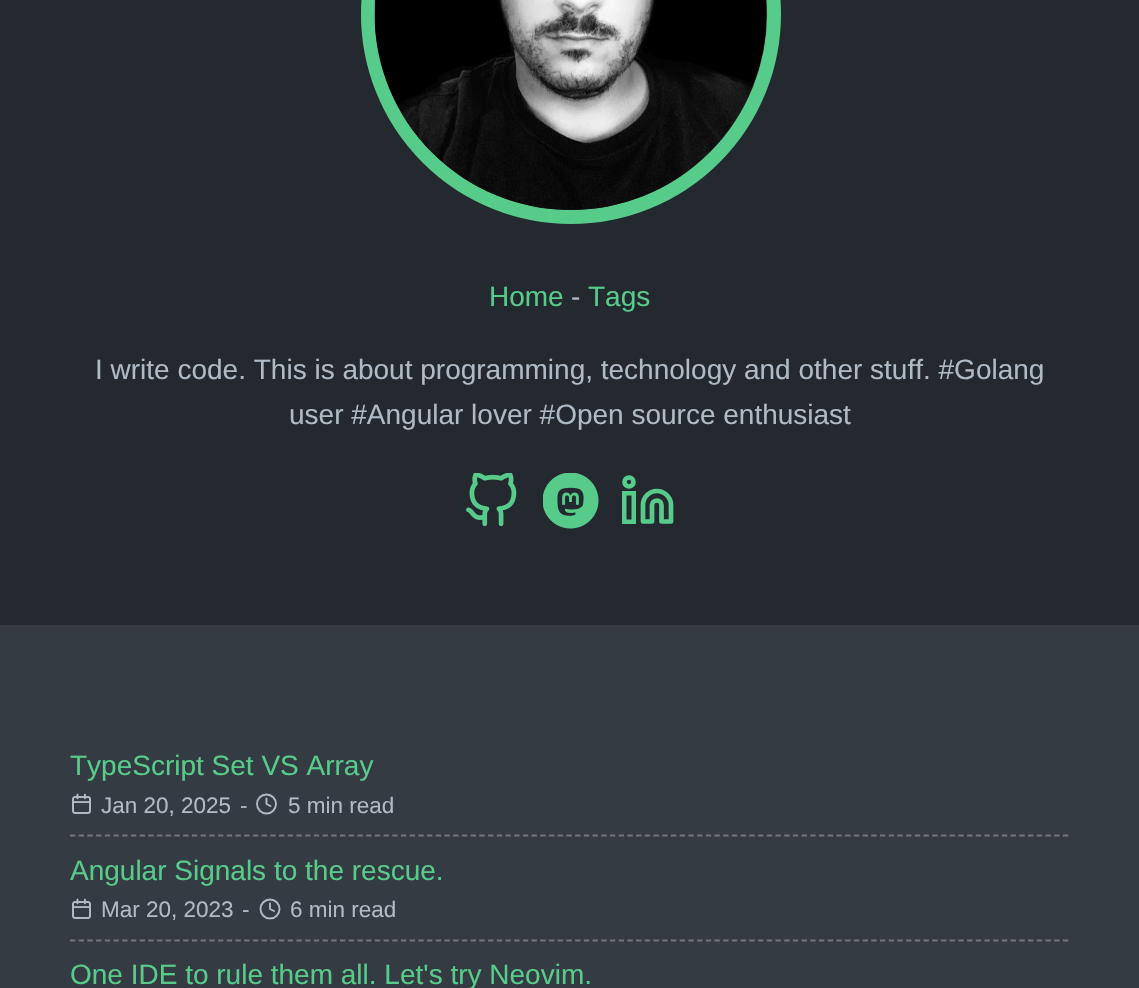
#include "include/core/SkBlurTypes.h"
#include "include/core/SkCanvas.h"
#include "include/core/SkData.h"
#include "include/core/SkFont.h"
#include "include/core/SkFontMgr.h"
#include "include/core/SkImage.h"
#include "include/core/SkMaskFilter.h"
#include "include/core/SkPaint.h"
#include "include/core/SkPathBuilder.h"
#include "include/core/SkTextBlob.h"
#include "include/effects/SkDashPathEffect.h"
#include "include/effects/SkGradientShader.h"
#include "include/utils/SkParsePath.h"

extern sk_sp<SkFontMgr> fontMgr;

void draw(SkCanvas* canvas) {
    SkPaint p;
    p.setAntiAlias(true);
    auto font = [&](const char* family, int weight, float size, bool italic = false) {
        SkFontStyle style(weight, SkFontStyle::kNormal_Width,
            italic ? SkFontStyle::kItalic_Slant : SkFontStyle::kUpright_Slant);
        SkFont result(fontMgr->matchFamilyStyle(family, style), size);
        result.setSubpixel(true);
        return result;
    };
    auto drawPhoto = [&](const char* path, float l, float t, float r, float b) {
        auto image = SkImages::DeferredFromEncodedData(SkData::MakeFromFileName(path));
        canvas->drawImageRect(image, SkRect::MakeLTRB(l, t, r, b), SkSamplingOptions());
    };
    canvas->clear(0xFF353B43);
    p.setColor(0xFF242930);
    canvas->drawRect(SkRect::MakeLTRB(0, 0, 1139, 625), p);
    p.setStyle(SkPaint::kStroke_Style);
    p.setStrokeWidth(14);
    p.setColor(0xFF57CC8A);
    canvas->drawCircle(571, 14, 203, p);
    drawPhoto("media/1.png", 374, 0, 767, 210);
    auto font1 = font("Liberation Sans", 400, 28);
    p.setStyle(SkPaint::kFill_Style);
    canvas->drawString("Home", 489, 306, font1, p);
    p.setColor(0xFFAFBAC4);
    canvas->drawString("-", 571, 306, font1, p);
    p.setColor(0xFF57CC8A);
    canvas->drawString("Tags", 588, 306, font1, p);
    p.setColor(0xFFAFBAC4);
    canvas->drawString("I write code. This is about programming, technology and other stuff. #Golang", 95, 379, font1, p);
    canvas->drawString("user #Angular lover #Open source enthusiast", 289, 424, font1, p);
    drawPhoto("media/2.png", 466, 473, 517, 527);
    drawPhoto("media/3.png", 543, 473, 599, 529);
    p.setStyle(SkPaint::kStroke_Style);
    p.setStrokeWidth(4.7f);
    p.setStrokeCap(SkPaint::kRound_Cap);
    p.setStrokeJoin(SkPaint::kRound_Join);
    p.setColor(0xFF57CC8A);
    canvas->drawPath(SkPathBuilder().moveTo(657, 491).cubicTo(664.5f, 491, 671, 497.5f, 671, 505).lineTo(671, 521.5f).lineTo(661.5f, 521.5f).lineTo(661.5f, 505).cubicTo(661.5f, 502.5f, 659.5f, 500.5f, 657, 500.5f).cubicTo(654.5f, 500.5f, 652, 502.5f, 652, 505).lineTo(652, 521.5f).lineTo(643, 521.5f).lineTo(643, 505).cubicTo(643, 497.5f, 649, 491, 657, 491).close().detach(), p);
    p.setStrokeWidth(4.5f);
    p.setStrokeCap(SkPaint::kButt_Cap);
    p.setStrokeJoin(SkPaint::kMiter_Join);
    canvas->drawRect(SkRect::MakeLTRB(624.25f, 493.25f, 633.75f, 521.75f), p);
    p.setStrokeWidth(4.7f);
    canvas->drawCircle(629, 482, 4.5f, p);
    p.setStrokeWidth(1.8f);
    p.setColor(0xFF72767B);
    p.setPathEffect(SkDashPathEffect::Make({{5.25f, 3.46f}}, 0));
    canvas->drawPath(SkPathBuilder().moveTo(70, 835.5f).lineTo(1069, 835.5f).detach(), p);
    p.setPathEffect(nullptr);
    p.setStyle(SkPaint::kFill_Style);
    p.setColor(0xFF57CC8A);
    canvas->drawString("TypeScript Set VS Array", 70, 775, font1, p);
    drawPhoto("media/4.png", 71, 793, 91, 814);
    auto font2 = font("Liberation Sans", 400, 22.5f);
    p.setColor(0xFFAFBAC4);
    canvas->drawString("Jan 20, 2025", 101, 813, font2, p);
    canvas->drawString("-", 240, 813, font2, p);
    p.setStyle(SkPaint::kStroke_Style);
    p.setStrokeWidth(1.9f);
    canvas->drawCircle(266.5f, 804, 9.5f, p);
    p.setStrokeCap(SkPaint::kRound_Cap);
    p.setStrokeJoin(SkPaint::kRound_Join);
    canvas->drawPath(SkPathBuilder().moveTo(266.5f, 798.5f).lineTo(266.5f, 804).lineTo(270.5f, 806).detach(), p);
    p.setStyle(SkPaint::kFill_Style);
    canvas->drawString("5 min read", 288, 813, font2, p);
    p.setStyle(SkPaint::kStroke_Style);
    p.setStrokeWidth(1.8f);
    p.setStrokeCap(SkPaint::kButt_Cap);
    p.setStrokeJoin(SkPaint::kMiter_Join);
    p.setColor(0xFF72767B);
    p.setPathEffect(SkDashPathEffect::Make({{5.25f, 3.46f}}, 0));
    canvas->drawPath(SkPathBuilder().moveTo(70, 940.5f).lineTo(1069, 940.5f).detach(), p);
    p.setPathEffect(nullptr);
    p.setStyle(SkPaint::kFill_Style);
    p.setColor(0xFF57CC8A);
    canvas->drawString("Angular Signals to the rescue.", 70, 880, font1, p);
    drawPhoto("media/4.png", 71, 898, 91, 919);
    p.setColor(0xFFAFBAC4);
    canvas->drawString("Mar 20, 2023", 101, 917, font2, p);
    canvas->drawString("-", 242, 917, font2, p);
    p.setStyle(SkPaint::kStroke_Style);
    p.setStrokeWidth(1.9f);
    canvas->drawCircle(270, 909, 9.5f, p);
    p.setStrokeCap(SkPaint::kRound_Cap);
    p.setStrokeJoin(SkPaint::kRound_Join);
    canvas->drawPath(SkPathBuilder().moveTo(270, 903.5f).lineTo(270, 909).lineTo(274, 911).detach(), p);
    p.setStyle(SkPaint::kFill_Style);
    canvas->drawString("6 min read", 290, 917, font2, p);
    p.setColor(0xFF57CC8A);
    canvas->drawString("One IDE to rule them all. Let's try Neovim.", 70, 984, font1, p);
}
